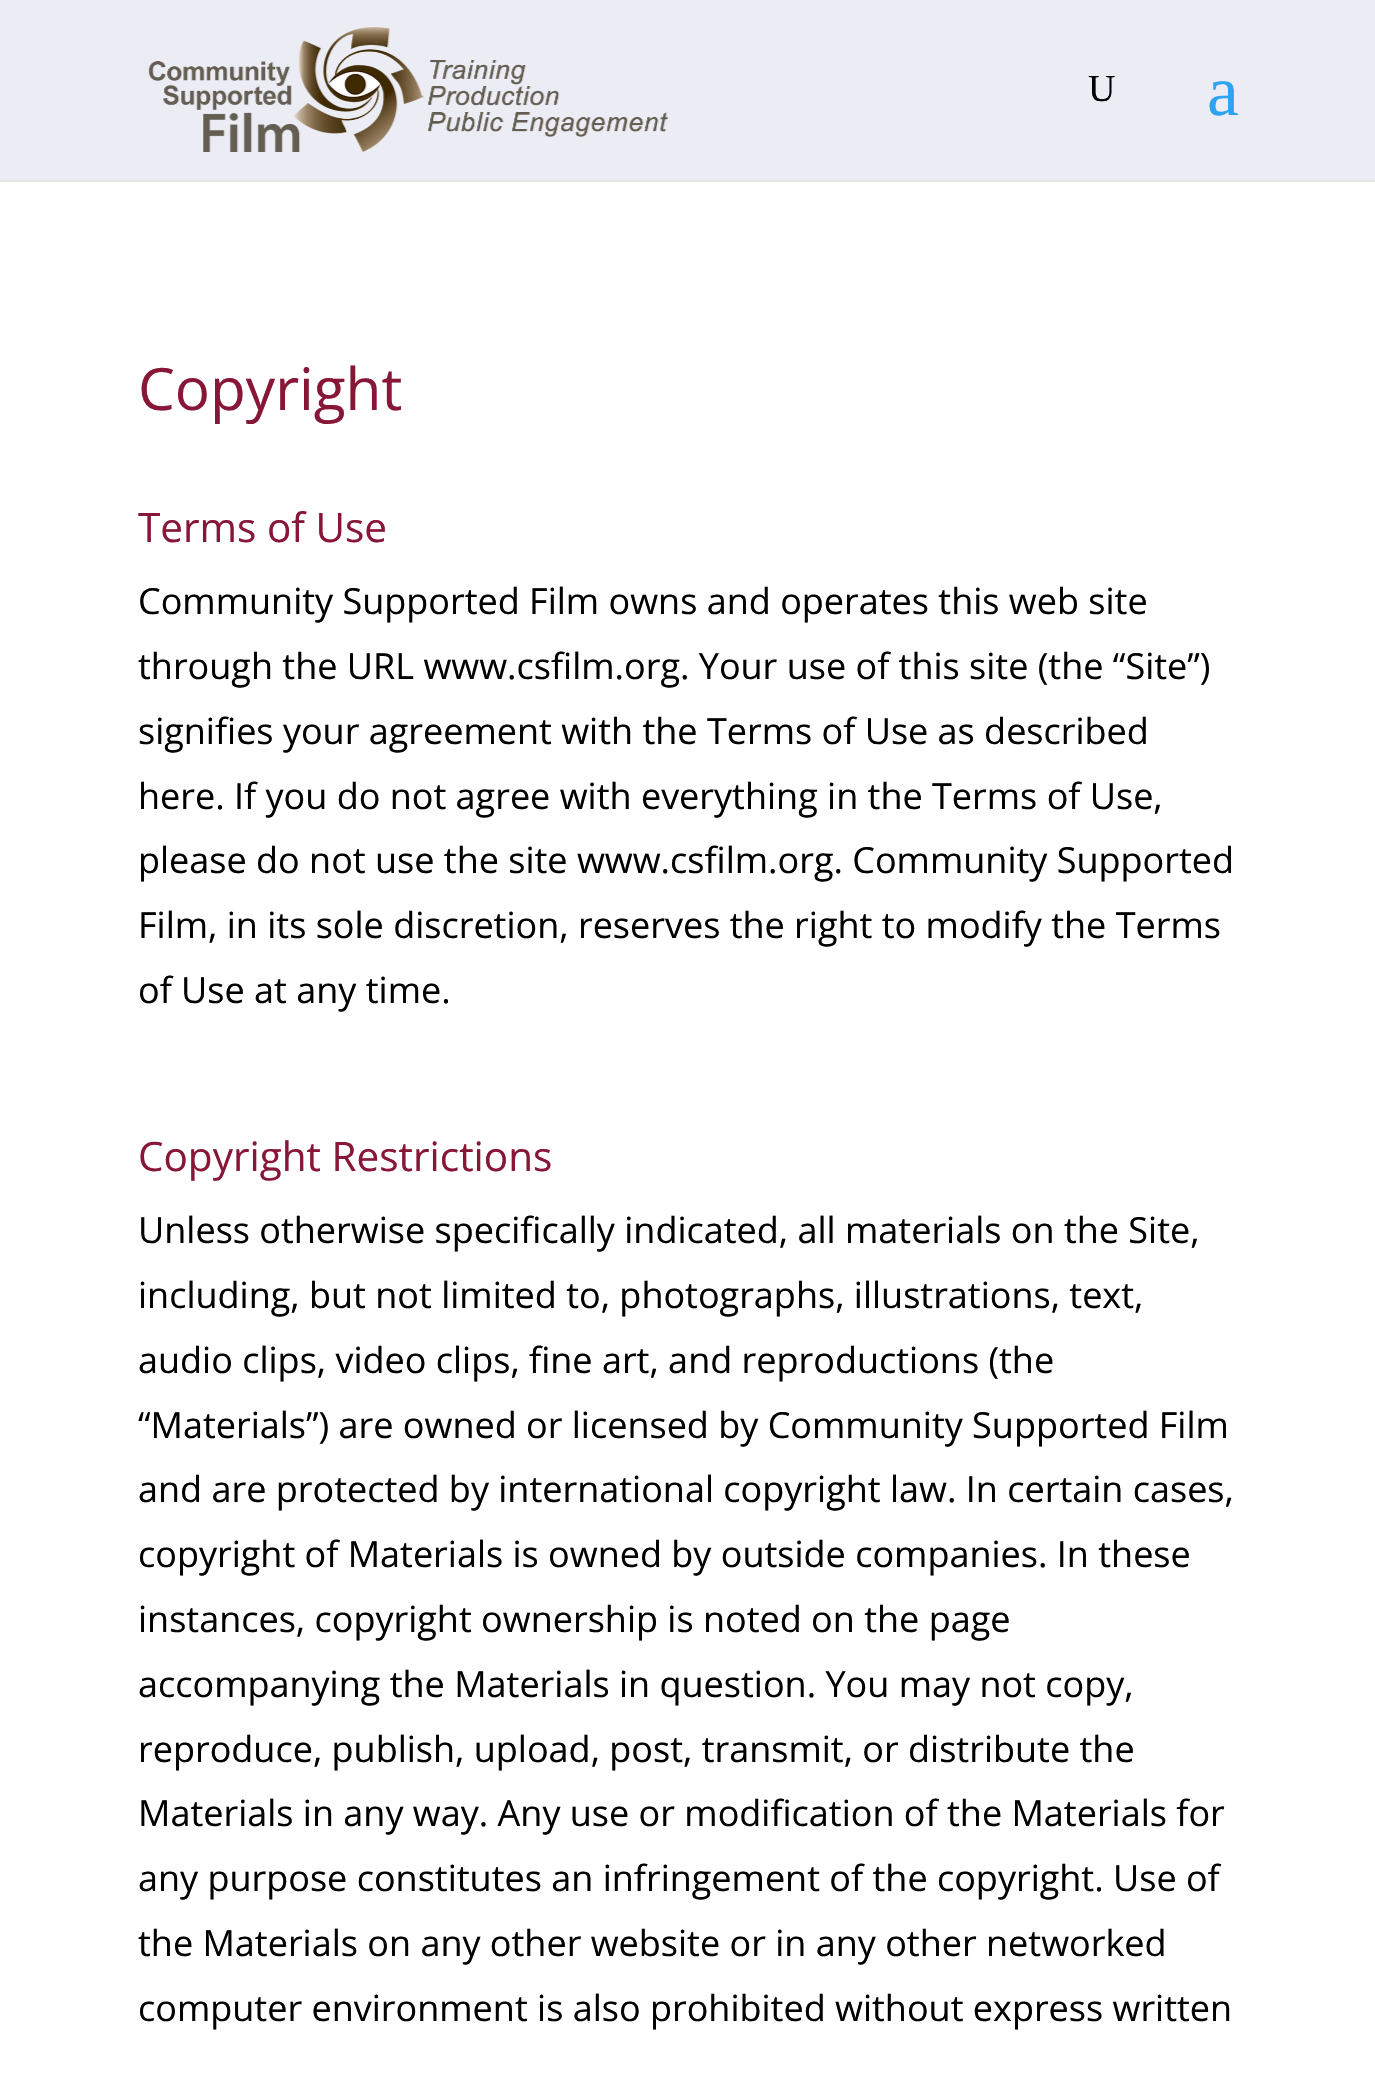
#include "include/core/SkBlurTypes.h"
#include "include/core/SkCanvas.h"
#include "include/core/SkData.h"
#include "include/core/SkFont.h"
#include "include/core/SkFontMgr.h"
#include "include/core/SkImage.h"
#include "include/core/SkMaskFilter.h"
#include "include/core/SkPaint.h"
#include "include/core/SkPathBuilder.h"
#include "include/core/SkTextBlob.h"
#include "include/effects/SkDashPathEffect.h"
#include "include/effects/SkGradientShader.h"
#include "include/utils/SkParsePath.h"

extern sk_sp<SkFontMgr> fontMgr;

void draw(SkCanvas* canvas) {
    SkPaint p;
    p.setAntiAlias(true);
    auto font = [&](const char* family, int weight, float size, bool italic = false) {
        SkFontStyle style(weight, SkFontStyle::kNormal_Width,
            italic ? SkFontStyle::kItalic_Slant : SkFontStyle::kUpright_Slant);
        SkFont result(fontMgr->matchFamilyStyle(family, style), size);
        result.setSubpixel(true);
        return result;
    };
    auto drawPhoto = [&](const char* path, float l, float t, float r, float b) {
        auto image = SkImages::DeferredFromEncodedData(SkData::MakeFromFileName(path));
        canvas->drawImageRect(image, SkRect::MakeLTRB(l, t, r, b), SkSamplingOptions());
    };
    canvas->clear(0xFFFFFFFF);
    p.setColor(0xFFE6E6E6);
    canvas->drawRect(SkRect::MakeLTRB(0, 180, 1375, 182), p);
    p.setColor(0xFFEBECF4);
    canvas->drawRect(SkRect::MakeLTRB(0, 0, 1375, 180), p);
    drawPhoto("media/1.png", 148, 27, 668, 152);
    auto font1 = font("Liberation Serif", 400, 38);
    p.setColor(0xFF000000);
    canvas->drawString("U", 1088, 101, font1, p);
    auto font2 = font("Liberation Serif", 400, 72);
    p.setColor(0xFF2EA3F2);
    canvas->drawString("a", 1207, 115, font2, p);
    auto font3 = font("Open Sans", 400, 58.5f);
    p.setColor(0xFF881637);
    canvas->drawString("Copyright", 138, 410, font3, p);
    auto font4 = font("Open Sans", 400, 40.5f);
    canvas->drawString("Terms of Use", 138, 542, font4, p);
    auto font5 = font("Open Sans", 400, 36);
    p.setColor(0xFF000000);
    {
        const struct { const char* s; float x, y; } items[] = {
            {"Community Supported Film owns and operates this web site", 138, 614},
            {"through the URL www.csfilm.org. Your use of this site (the “Site”)", 138, 679},
            {"signifies your agreement with the Terms of Use as described", 138, 744},
            {"here. If you do not agree with everything in the Terms of Use,", 138, 809},
            {"please do not use the site www.csfilm.org. Community Supported", 138, 873},
            {"Film, in its sole discretion, reserves the right to modify the Terms", 138, 938},
            {"of Use at any time.", 138, 1003},
        };
        for (auto [s, x, y] : items) {
            canvas->drawString(s, x, y, font5, p);
        }
    }
    p.setColor(0xFF881637);
    canvas->drawString("Copyright Restrictions", 138, 1171, font4, p);
    p.setColor(0xFF000000);
    {
        const struct { const char* s; float x, y; } items[] = {
            {"Unless otherwise specifically indicated, all materials on the Site,", 138, 1243},
            {"including, but not limited to, photographs, illustrations, text,", 138, 1308},
            {"audio clips, video clips, fine art, and reproductions (the", 138, 1373},
            {"“Materials”) are owned or licensed by Community Supported Film", 138, 1438},
            {"and are protected by international copyright law. In certain cases,", 138, 1502},
            {"copyright of Materials is owned by outside companies. In these", 138, 1567},
            {"instances, copyright ownership is noted on the page", 138, 1632},
            {"accompanying the Materials in question. You may not copy,", 138, 1697},
            {"reproduce, publish, upload, post, transmit, or distribute the", 138, 1762},
            {"Materials in any way. Any use or modification of the Materials for", 138, 1826},
            {"any purpose constitutes an infringement of the copyright. Use of", 138, 1891},
            {"the Materials on any other website or in any other networked", 138, 1956},
            {"computer environment is also prohibited without express written", 138, 2021},
        };
        for (auto [s, x, y] : items) {
            canvas->drawString(s, x, y, font5, p);
        }
    }
}
